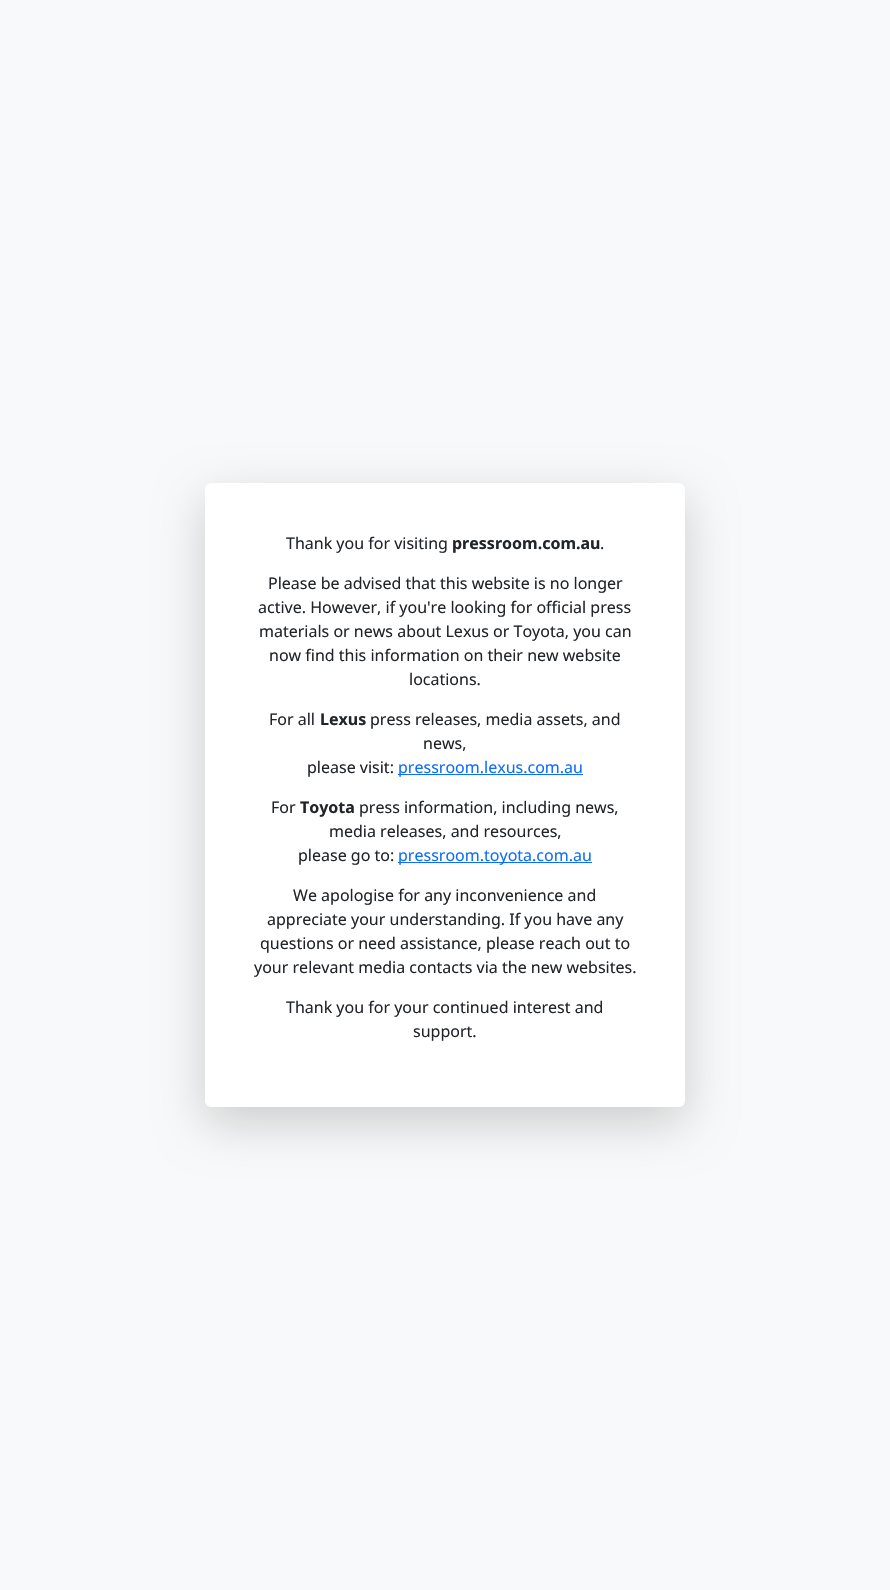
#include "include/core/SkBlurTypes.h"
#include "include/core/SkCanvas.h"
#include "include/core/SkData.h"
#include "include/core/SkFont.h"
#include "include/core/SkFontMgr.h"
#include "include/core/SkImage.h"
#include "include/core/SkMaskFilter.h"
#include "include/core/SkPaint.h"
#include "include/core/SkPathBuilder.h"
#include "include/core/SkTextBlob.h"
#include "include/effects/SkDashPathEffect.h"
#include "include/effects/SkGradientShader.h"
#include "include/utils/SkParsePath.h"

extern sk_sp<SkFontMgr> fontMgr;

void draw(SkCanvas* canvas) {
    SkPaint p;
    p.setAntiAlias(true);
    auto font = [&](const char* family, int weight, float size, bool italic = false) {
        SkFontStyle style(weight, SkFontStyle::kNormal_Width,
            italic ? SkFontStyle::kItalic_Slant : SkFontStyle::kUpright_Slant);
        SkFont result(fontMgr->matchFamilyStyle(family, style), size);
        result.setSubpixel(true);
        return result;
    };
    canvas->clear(0xFFF8F9FA);
    p.setColor(0x2E000000);
    p.setMaskFilter(SkMaskFilter::MakeBlur(kNormal_SkBlurStyle, 24));
    canvas->drawRoundRect(SkRect::MakeLTRB(205, 499, 685, 1123), 6, 6, p);
    p.setMaskFilter(nullptr);
    p.setColor(0xFFFFFFFF);
    canvas->drawRoundRect(SkRect::MakeLTRB(205, 483, 685, 1107), 6, 6, p);
    auto font1 = font("Noto Sans", 400, 16);
    p.setColor(0xFF212529);
    canvas->drawString("Thank you for visiting", 286, 549, font1, p);
    auto font2 = font("Noto Sans", 700, 16);
    canvas->drawString("pressroom.com.au", 452, 549, font2, p);
    {
        const struct { const char* s; float x, y; } items[] = {
            {".", 600, 549},
            {"Please be advised that this website is no longer", 268, 589},
            {"active. However, if you're looking for official press", 258, 613},
            {"materials or news about Lexus or Toyota, you can", 259, 637},
            {"now find this information on their new website", 269, 661},
            {"locations.", 409, 685},
            {"For all", 269, 725},
        };
        for (auto [s, x, y] : items) {
            canvas->drawString(s, x, y, font1, p);
        }
    }
    canvas->drawString("Lexus", 320, 725, font2, p);
    {
        const struct { const char* s; float x, y; } items[] = {
            {"press releases, media assets, and", 370, 725},
            {"news,", 423, 749},
            {"please visit:", 307, 773},
        };
        for (auto [s, x, y] : items) {
            canvas->drawString(s, x, y, font1, p);
        }
    }
    p.setColor(0xFF0D6EFD);
    canvas->drawRect(SkRect::MakeLTRB(398, 774, 583, 775), p);
    canvas->drawString("pressroom.lexus.com.au", 398, 773, font1, p);
    p.setColor(0xFF212529);
    canvas->drawString("For", 271, 813, font1, p);
    canvas->drawString("Toyota", 300, 813, font2, p);
    {
        const struct { const char* s; float x, y; } items[] = {
            {"press information, including news,", 359, 813},
            {"media releases, and resources,", 329, 837},
            {"please go to:", 298, 861},
        };
        for (auto [s, x, y] : items) {
            canvas->drawString(s, x, y, font1, p);
        }
    }
    p.setColor(0xFF0D6EFD);
    canvas->drawRect(SkRect::MakeLTRB(398, 862, 592, 863), p);
    canvas->drawString("pressroom.toyota.com.au", 398, 861, font1, p);
    p.setColor(0xFF212529);
    {
        const struct { const char* s; float x, y; } items[] = {
            {"We apologise for any inconvenience and", 293, 901},
            {"appreciate your understanding. If you have any", 267, 925},
            {"questions or need assistance, please reach out to", 260, 949},
            {"your relevant media contacts via the new websites.", 254, 973},
            {"Thank you for your continued interest and", 286, 1013},
            {"support.", 413, 1037},
        };
        for (auto [s, x, y] : items) {
            canvas->drawString(s, x, y, font1, p);
        }
    }
}
